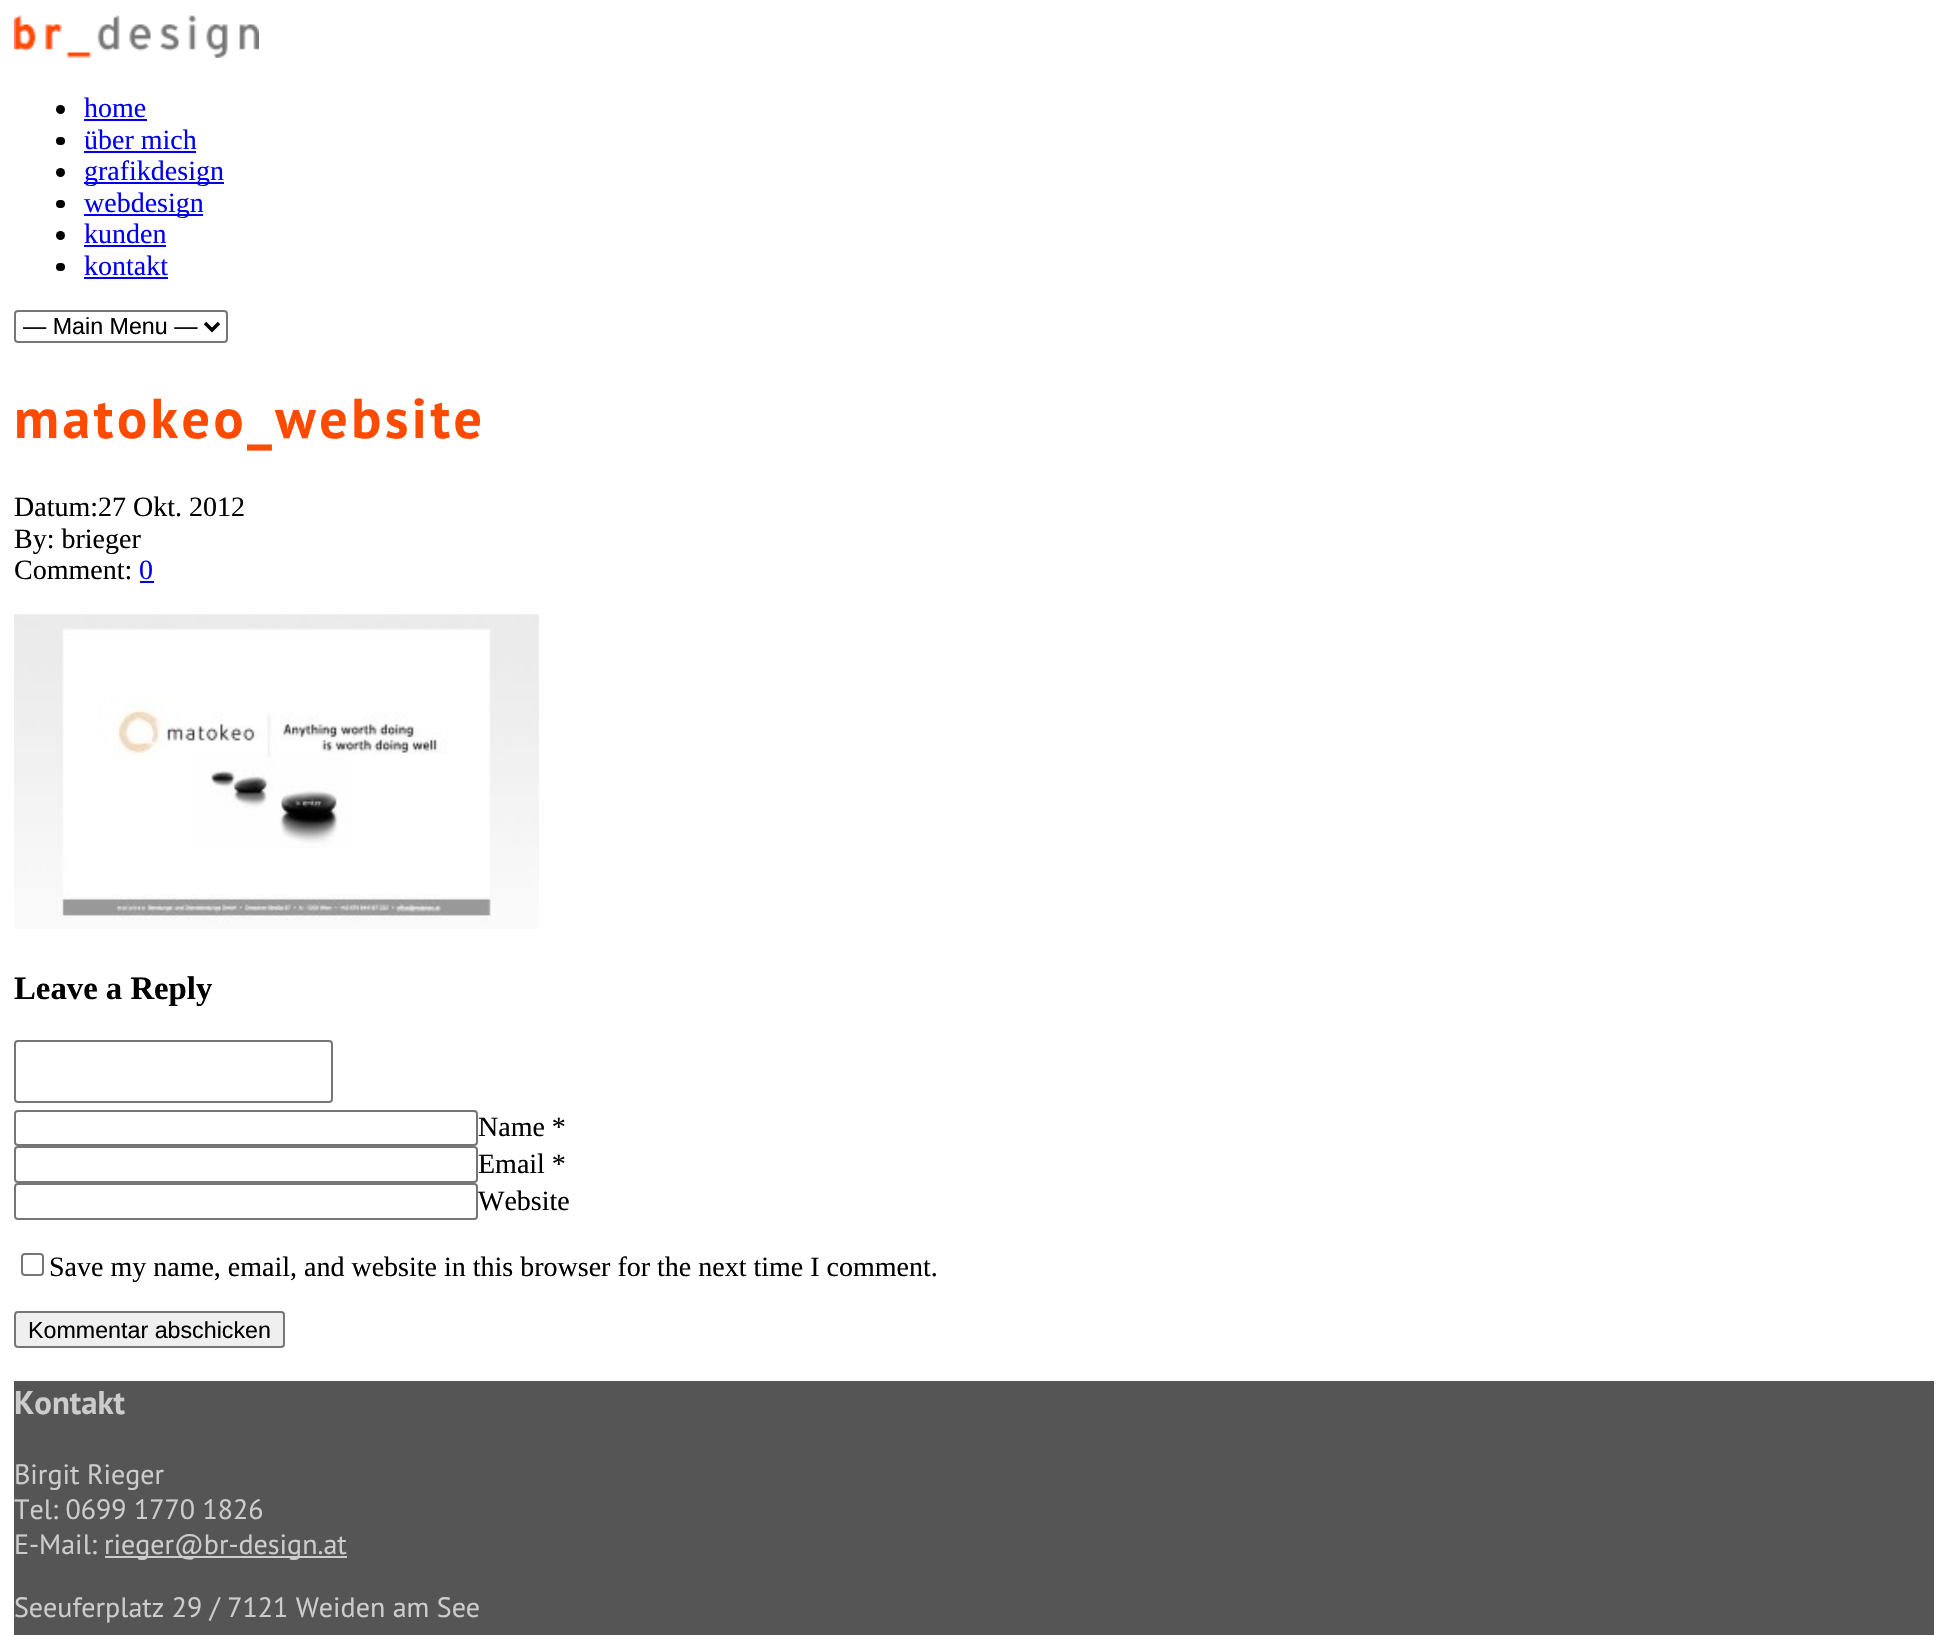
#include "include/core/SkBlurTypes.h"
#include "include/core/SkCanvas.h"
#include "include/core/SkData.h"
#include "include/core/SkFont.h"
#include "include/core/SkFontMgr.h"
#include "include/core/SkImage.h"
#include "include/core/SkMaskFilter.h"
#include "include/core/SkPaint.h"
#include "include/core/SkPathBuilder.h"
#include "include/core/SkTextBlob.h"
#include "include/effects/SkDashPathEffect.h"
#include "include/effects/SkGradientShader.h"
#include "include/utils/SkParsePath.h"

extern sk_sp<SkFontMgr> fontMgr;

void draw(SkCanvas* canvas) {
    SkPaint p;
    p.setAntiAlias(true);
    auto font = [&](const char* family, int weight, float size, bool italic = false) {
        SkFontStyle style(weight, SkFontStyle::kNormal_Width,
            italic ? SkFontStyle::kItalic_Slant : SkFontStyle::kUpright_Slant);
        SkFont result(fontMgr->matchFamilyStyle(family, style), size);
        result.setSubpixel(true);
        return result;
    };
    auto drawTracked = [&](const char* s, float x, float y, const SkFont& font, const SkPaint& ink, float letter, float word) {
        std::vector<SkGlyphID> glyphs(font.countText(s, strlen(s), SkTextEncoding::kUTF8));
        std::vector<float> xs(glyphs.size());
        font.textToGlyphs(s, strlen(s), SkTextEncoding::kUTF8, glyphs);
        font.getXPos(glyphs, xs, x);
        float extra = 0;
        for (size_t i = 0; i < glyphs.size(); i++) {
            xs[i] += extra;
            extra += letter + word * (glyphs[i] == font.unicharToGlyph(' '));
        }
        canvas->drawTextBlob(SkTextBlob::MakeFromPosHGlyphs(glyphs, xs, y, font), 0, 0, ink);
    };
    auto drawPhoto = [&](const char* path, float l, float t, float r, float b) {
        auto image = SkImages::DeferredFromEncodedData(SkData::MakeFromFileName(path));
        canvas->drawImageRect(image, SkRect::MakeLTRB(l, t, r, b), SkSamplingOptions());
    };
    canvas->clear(0xFFFFFFFF);
    drawPhoto("media/1.png", 14, 15, 259, 58);
    p.setColor(0xFF000000);
    canvas->drawCircle(60.5f, 109.5f, 4.5f, p);
    auto font1 = font("Liberation Serif", 400, 28);
    p.setColor(0xFF0000EE);
    canvas->drawString("home", 84, 117, font1, p);
    canvas->drawRect(SkRect::MakeLTRB(84, 119, 147, 121), p);
    p.setColor(0xFF000000);
    canvas->drawRoundRect(SkRect::MakeLTRB(56, 137, 65, 145), 4, 4, p);
    p.setColor(0xFF0000EE);
    canvas->drawString("über mich", 84, 149, font1, p);
    canvas->drawRect(SkRect::MakeLTRB(84, 151, 196, 153), p);
    p.setColor(0xFF000000);
    canvas->drawCircle(60.5f, 172.5f, 4.5f, p);
    p.setColor(0xFF0000EE);
    canvas->drawRect(SkRect::MakeLTRB(84, 182, 224, 184), p);
    canvas->drawString("grafikdesign", 84, 180, font1, p);
    p.setColor(0xFF000000);
    canvas->drawRoundRect(SkRect::MakeLTRB(56, 200, 65, 208), 4, 4, p);
    p.setColor(0xFF0000EE);
    canvas->drawRect(SkRect::MakeLTRB(84, 214, 203, 216), p);
    canvas->drawString("webdesign", 84, 212, font1, p);
    p.setColor(0xFF000000);
    canvas->drawCircle(60.5f, 235.5f, 4.5f, p);
    p.setColor(0xFF0000EE);
    canvas->drawString("kunden", 84, 243, font1, p);
    canvas->drawRect(SkRect::MakeLTRB(84, 245, 166, 247), p);
    p.setColor(0xFF000000);
    canvas->drawRoundRect(SkRect::MakeLTRB(56, 263, 65, 271), 4, 4, p);
    p.setColor(0xFF0000EE);
    canvas->drawString("kontakt", 84, 275, font1, p);
    canvas->drawRect(SkRect::MakeLTRB(84, 277, 168, 279), p);
    p.setStyle(SkPaint::kStroke_Style);
    p.setStrokeWidth(2);
    p.setColor(0xFF767676);
    canvas->drawRoundRect(SkRect::MakeLTRB(15, 311, 227, 342), 3, 3, p);
    p.setStrokeWidth(3.5f);
    p.setColor(0xFF000000);
    canvas->drawPath(SkPathBuilder().moveTo(205, 323).lineTo(212, 330).lineTo(219, 323).detach(), p);
    auto font2 = font("Liberation Sans", 400, 23.25f);
    p.setStyle(SkPaint::kFill_Style);
    canvas->drawString("— Main Menu —", 23, 334, font2, p);
    auto font3 = font("PT Sans", 700, 56);
    p.setColor(0xFFFF4A00);
    drawTracked("matokeo_website", 14, 438, font3, p, 3.5f, 0);
    p.setColor(0xFF000000);
    {
        const struct { const char* s; float x, y; } items[] = {
            {"Datum:27 Okt. 2012", 14, 516},
            {"By: brieger", 14, 548},
            {"Comment:", 14, 579},
        };
        for (auto [s, x, y] : items) {
            canvas->drawString(s, x, y, font1, p);
        }
    }
    p.setColor(0xFF0000EE);
    canvas->drawString("0", 139, 579, font1, p);
    canvas->drawRect(SkRect::MakeLTRB(140, 581, 154, 583), p);
    drawPhoto("media/2.png", 14, 614, 539, 929);
    auto font4 = font("Liberation Serif", 700, 32.75f);
    p.setColor(0xFF000000);
    canvas->drawString("Leave a Reply", 14, 999, font4, p);
    p.setStyle(SkPaint::kStroke_Style);
    p.setStrokeWidth(2);
    p.setColor(0xFF767676);
    canvas->drawRoundRect(SkRect::MakeLTRB(15, 1041, 332, 1102), 3, 3, p);
    canvas->drawRoundRect(SkRect::MakeLTRB(15, 1111, 477, 1145), 3, 3, p);
    p.setStyle(SkPaint::kFill_Style);
    p.setColor(0xFF000000);
    canvas->drawString("Name *", 478, 1136, font1, p);
    p.setStyle(SkPaint::kStroke_Style);
    p.setColor(0xFF767676);
    canvas->drawRoundRect(SkRect::MakeLTRB(15, 1147, 477, 1182), 3, 3, p);
    p.setStyle(SkPaint::kFill_Style);
    p.setColor(0xFF000000);
    canvas->drawString("Email *", 478, 1173, font1, p);
    p.setStyle(SkPaint::kStroke_Style);
    p.setColor(0xFF767676);
    canvas->drawRoundRect(SkRect::MakeLTRB(15, 1184, 477, 1219), 3, 3, p);
    p.setStyle(SkPaint::kFill_Style);
    p.setColor(0xFF000000);
    canvas->drawString("Website", 478, 1210, font1, p);
    p.setStyle(SkPaint::kStroke_Style);
    p.setColor(0xFF767676);
    canvas->drawRoundRect(SkRect::MakeLTRB(22, 1254, 43, 1275), 3, 3, p);
    p.setStyle(SkPaint::kFill_Style);
    p.setColor(0xFF000000);
    canvas->drawString("Save my name, email, and website in this browser for the next time I comment.", 49, 1276, font1, p);
    p.setColor(0xFFEFEFEF);
    canvas->drawRoundRect(SkRect::MakeLTRB(15, 1312, 284, 1347), 3, 3, p);
    p.setStyle(SkPaint::kStroke_Style);
    p.setColor(0xFF767676);
    canvas->drawRoundRect(SkRect::MakeLTRB(15, 1312, 284, 1347), 3, 3, p);
    p.setStyle(SkPaint::kFill_Style);
    p.setColor(0xFF000000);
    canvas->drawString("Kommentar abschicken", 28, 1338, font2, p);
    p.setColor(0xFF555555);
    canvas->drawRect(SkRect::MakeLTRB(14, 1381, 1934, 1635), p);
    auto font5 = font("PT Sans", 700, 32.75f);
    p.setColor(0xFFCCCCCC);
    canvas->drawString("Kontakt", 14, 1414, font5, p);
    auto font6 = font("PT Sans", 400, 28);
    {
        const struct { const char* s; float x, y; } items[] = {
            {"Birgit Rieger", 14, 1484},
            {"Tel: 0699 1770 1826", 14, 1519},
            {"E-Mail:", 14, 1554},
        };
        for (auto [s, x, y] : items) {
            canvas->drawString(s, x, y, font6, p);
        }
    }
    canvas->drawRect(SkRect::MakeLTRB(105, 1556, 347, 1558), p);
    canvas->drawString("rieger@br-design.at", 104, 1554, font6, p);
    canvas->drawString("Seeuferplatz 29 / 7121 Weiden am See", 14, 1617, font6, p);
}
